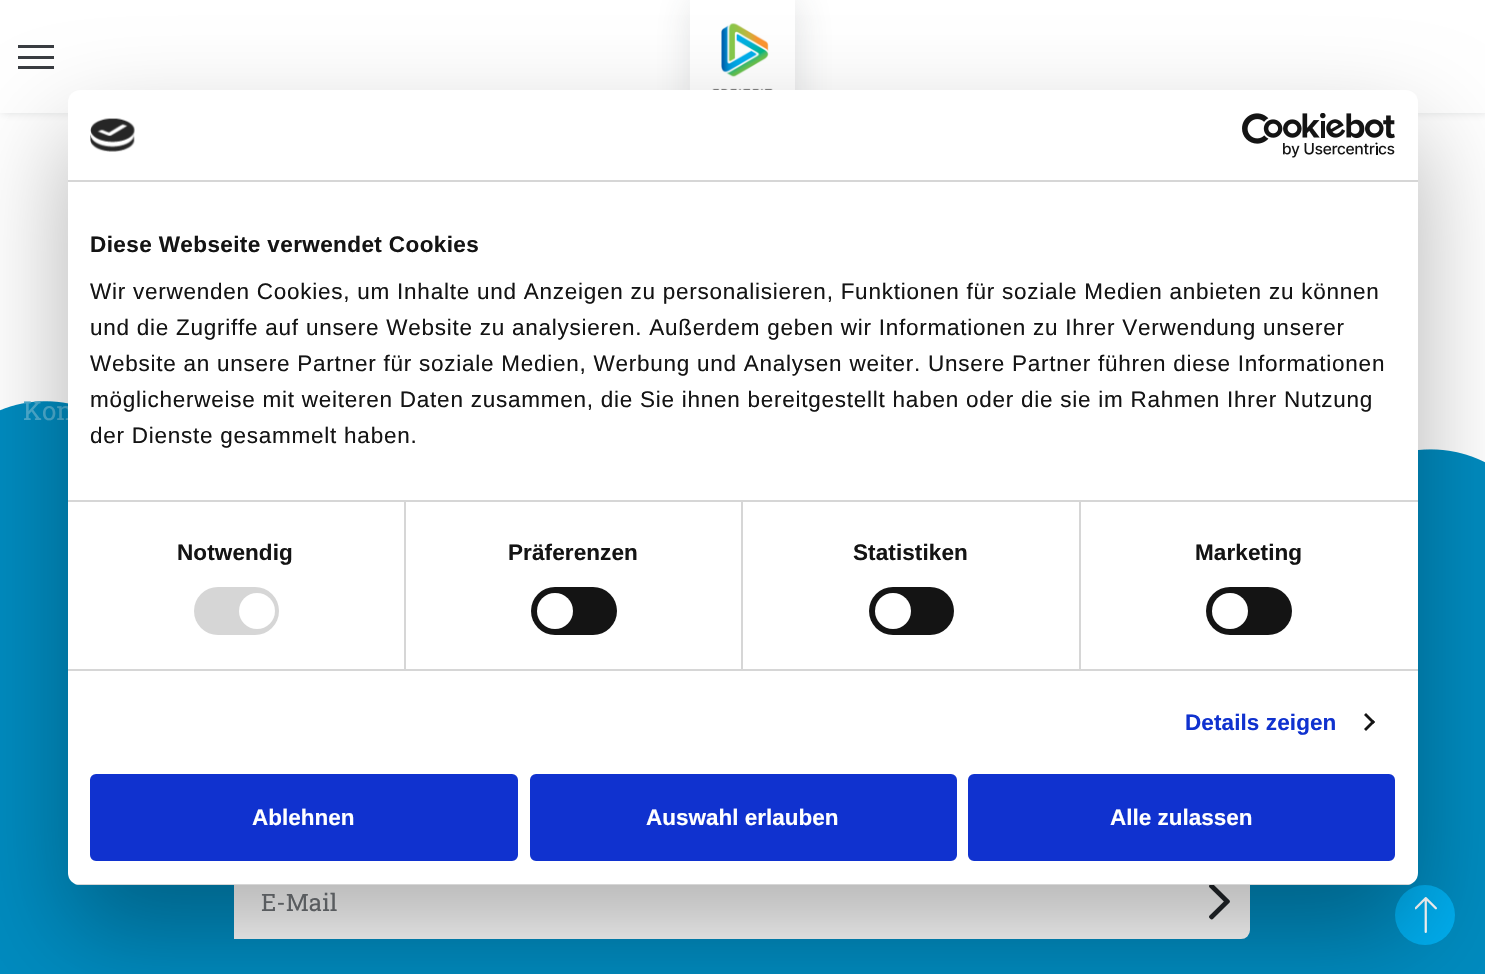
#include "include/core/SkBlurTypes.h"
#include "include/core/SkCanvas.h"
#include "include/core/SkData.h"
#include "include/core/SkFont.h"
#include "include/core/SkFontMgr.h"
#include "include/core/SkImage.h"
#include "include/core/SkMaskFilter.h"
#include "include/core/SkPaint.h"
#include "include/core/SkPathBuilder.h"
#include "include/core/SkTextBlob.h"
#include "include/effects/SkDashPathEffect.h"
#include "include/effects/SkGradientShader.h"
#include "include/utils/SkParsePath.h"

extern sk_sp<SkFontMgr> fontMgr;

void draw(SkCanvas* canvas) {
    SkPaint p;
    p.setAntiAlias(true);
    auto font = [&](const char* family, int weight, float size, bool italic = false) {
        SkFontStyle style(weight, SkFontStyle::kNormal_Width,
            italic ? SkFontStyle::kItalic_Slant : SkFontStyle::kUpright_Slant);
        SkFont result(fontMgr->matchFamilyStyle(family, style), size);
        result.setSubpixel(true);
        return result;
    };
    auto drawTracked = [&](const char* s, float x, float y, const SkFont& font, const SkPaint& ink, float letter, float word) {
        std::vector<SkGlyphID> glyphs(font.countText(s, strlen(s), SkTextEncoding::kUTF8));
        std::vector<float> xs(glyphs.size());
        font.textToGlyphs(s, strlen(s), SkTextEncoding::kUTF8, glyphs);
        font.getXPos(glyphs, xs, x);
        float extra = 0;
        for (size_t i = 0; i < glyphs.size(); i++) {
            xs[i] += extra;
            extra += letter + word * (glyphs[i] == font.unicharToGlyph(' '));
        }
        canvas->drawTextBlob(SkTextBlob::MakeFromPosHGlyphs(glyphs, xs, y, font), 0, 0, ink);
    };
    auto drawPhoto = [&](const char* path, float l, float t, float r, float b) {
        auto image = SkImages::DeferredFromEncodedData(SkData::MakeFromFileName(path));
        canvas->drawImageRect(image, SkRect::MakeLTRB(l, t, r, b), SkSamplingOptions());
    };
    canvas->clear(0xFFFFFFFF);
    p.setColor(0x26393C41);
    p.setMaskFilter(SkMaskFilter::MakeBlur(kNormal_SkBlurStyle, 4));
    canvas->drawRect(SkRect::MakeLTRB(2, 0, 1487, 113), p);
    p.setMaskFilter(nullptr);
    p.setColor(0xFFFFFFFF);
    canvas->drawRect(SkRect::MakeLTRB(0, 0, 1485, 113), p);
    p.setColor(0x26393C41);
    p.setMaskFilter(SkMaskFilter::MakeBlur(kNormal_SkBlurStyle, 19));
    canvas->drawRoundRect(SkRect::MakeLTRB(692, 0, 797, 137), 8, 8, p);
    p.setMaskFilter(nullptr);
    p.setColor(0xFFFFFFFF);
    canvas->drawRect(SkRect::MakeLTRB(690, 0, 795, 90), p);
    drawPhoto("media/1.png", 712, 23, 773, 90);
    {
        const struct { float l, t, r, b; SkColor color; } items[] = {
            {18, 45, 54, 48, 0xFF393C41},
            {18, 56, 54, 59, 0xFF393C41},
            {18, 66, 54, 69, 0xFF393C41},
        };
        for (auto [l, t, r, b, color] : items) {
            p.setColor(color);
            canvas->drawRect(SkRect::MakeLTRB(l, t, r, b), p);
        }
    }
    drawPhoto("media/4.png", 0, 401, 1485, 602);
    auto font1 = font("Roboto Slab", 400, 26);
    p.setColor(0xFF4CAED2);
    canvas->drawString("Kon", 23, 420, font1, p);
    p.setColor(0xFF008BBF);
    canvas->drawRect(SkRect::MakeLTRB(0, 602, 1485, 974), p);
    p.setColor(0xFFFFFFFF);
    canvas->drawRect(SkRect::MakeLTRB(239, 885, 1186, 934), p);
    canvas->drawPath(SkPathBuilder().moveTo(1191, 865).lineTo(1241, 865).cubicTo(1245.5f, 865, 1249, 868.5f, 1249, 873).lineTo(1249, 930).cubicTo(1249, 934.5f, 1245.5f, 938, 1241, 938).lineTo(1191, 938).close().detach(), p);
    p.setStyle(SkPaint::kStroke_Style);
    p.setStrokeWidth(2);
    canvas->drawPath(SkPathBuilder().moveTo(1191, 865).lineTo(1241, 865).cubicTo(1245.5f, 865, 1249, 868.5f, 1249, 873).lineTo(1249, 930).cubicTo(1249, 934.5f, 1245.5f, 938, 1241, 938).lineTo(1191, 938).close().detach(), p);
    p.setStrokeWidth(5);
    canvas->drawRect(SkRect::MakeLTRB(236.5f, 866.5f, 1188.5f, 936.5f), p);
    drawPhoto("media/5.png", 1209, 885, 1230, 920);
    p.setStyle(SkPaint::kFill_Style);
    p.setColor(0xFF00AEEF);
    canvas->drawCircle(1425, 915, 30, p);
    drawPhoto("media/6.png", 1415, 897, 1437, 933);
    p.setColor(0x4D000000);
    p.setMaskFilter(SkMaskFilter::MakeBlur(kNormal_SkBlurStyle, 51));
    canvas->drawRoundRect(SkRect::MakeLTRB(68, 138, 1418, 933), 12, 12, p);
    p.setMaskFilter(nullptr);
    p.setColor(0xFFFFFFFF);
    canvas->drawRoundRect(SkRect::MakeLTRB(68, 90, 1418, 885), 12, 12, p);
    p.setColor(0xFFD6D6D6);
    canvas->drawRect(SkRect::MakeLTRB(68, 180, 1418, 182), p);
    drawPhoto("media/2.png", 90, 118, 135, 152);
    drawPhoto("media/3.png", 1242, 113, 1395, 158);
    {
        const struct { float l, t, r, b; SkColor color; } items[] = {
            {404, 501, 406, 669, 0xFFD6D6D6},
            {741, 501, 743, 669, 0xFFD6D6D6},
            {1079, 501, 1081, 669, 0xFFD6D6D6},
            {68, 500, 1418, 502, 0xFFD6D6D6},
        };
        for (auto [l, t, r, b, color] : items) {
            p.setColor(color);
            canvas->drawRect(SkRect::MakeLTRB(l, t, r, b), p);
        }
    }
    auto font2 = font("Liberation Sans", 700, 22.5f);
    p.setColor(0xFF141414);
    drawTracked("Diese Webseite verwendet Cookies", 90, 252, font2, p, 0.4f, 0);
    auto font3 = font("Liberation Sans", 400, 22.5f);
    {
        const struct { const char* s; float x, y; } items[] = {
            {"Wir verwenden Cookies, um Inhalte und Anzeigen zu personalisieren, Funktionen für soziale Medien anbieten zu können", 90, 299},
            {"und die Zugriffe auf unsere Website zu analysieren. Außerdem geben wir Informationen zu Ihrer Verwendung unserer", 90, 335},
            {"Website an unsere Partner für soziale Medien, Werbung und Analysen weiter. Unsere Partner führen diese Informationen", 90, 371},
            {"möglicherweise mit weiteren Daten zusammen, die Sie ihnen bereitgestellt haben oder die sie im Rahmen Ihrer Nutzung", 90, 407},
            {"der Dienste gesammelt haben.", 90, 443},
        };
        for (auto [s, x, y] : items) {
            drawTracked(s, x, y, font3, p, 0.75f, 0);
        }
    }
    p.setColor(0xFFD6D6D6);
    canvas->drawRect(SkRect::MakeLTRB(68, 669, 1418, 671), p);
    p.setColor(0xFF141414);
    drawTracked("Notwendig", 177, 560, font2, p, 0.1f, 0);
    p.setColor(0xFFD6D6D6);
    canvas->drawRoundRect(SkRect::MakeLTRB(194, 587, 279, 635), 24, 24, p);
    p.setColor(0xFFFFFFFF);
    canvas->drawCircle(257, 611, 18, p);
    p.setColor(0xFF141414);
    drawTracked("Präferenzen", 508, 560, font2, p, 0.1f, 0);
    canvas->drawRoundRect(SkRect::MakeLTRB(531, 587, 617, 635), 24, 24, p);
    p.setColor(0xFFFFFFFF);
    canvas->drawCircle(555, 611, 18, p);
    p.setColor(0xFF141414);
    drawTracked("Statistiken", 853, 560, font2, p, 0.1f, 0);
    canvas->drawRoundRect(SkRect::MakeLTRB(869, 587, 954, 635), 24, 24, p);
    p.setColor(0xFFFFFFFF);
    canvas->drawCircle(893, 611, 18, p);
    p.setColor(0xFF141414);
    drawTracked("Marketing", 1195, 560, font2, p, 0.1f, 0);
    canvas->drawRoundRect(SkRect::MakeLTRB(1206, 587, 1292, 635), 24, 24, p);
    p.setColor(0xFFFFFFFF);
    canvas->drawCircle(1230, 611, 18, p);
    p.setColor(0xFF1032CF);
    drawTracked("Details zeigen", 1185, 730, font2, p, 0.1f, 0);
    p.setColor(0xFF141414);
    canvas->drawPath(SkPathBuilder().moveTo(1366, 713).lineTo(1375, 722).lineTo(1373, 724).lineTo(1364, 715).close().detach(), p);
    canvas->drawPath(SkPathBuilder().moveTo(1373, 720).lineTo(1375, 722).lineTo(1366, 731).lineTo(1364, 729).close().detach(), p);
    canvas->save();
    canvas->clipPath(SkPathBuilder().moveTo(80, 90).lineTo(1406, 90).cubicTo(1412.5f, 90, 1418, 95.5f, 1418, 102).lineTo(1418, 873).cubicTo(1418, 879.5f, 1412.5f, 885, 1406, 885).lineTo(80, 885).cubicTo(73.5f, 885, 68, 879.5f, 68, 873).lineTo(68, 102).cubicTo(68, 95.5f, 73.5f, 90, 80, 90).close().detach(), true);
    p.setColor(0xFFD6D6D6);
    canvas->drawRect(SkRect::MakeLTRB(68, 884, 1418, 885), p);
    canvas->restore();
    p.setColor(0xFF1032CF);
    canvas->drawRoundRect(SkRect::MakeLTRB(91.5f, 775.5f, 516.5f, 859.5f), 4.5f, 4.5f, p);
    p.setStyle(SkPaint::kStroke_Style);
    p.setStrokeWidth(3);
    canvas->drawRoundRect(SkRect::MakeLTRB(91.5f, 775.5f, 516.5f, 859.5f), 4.5f, 4.5f, p);
    p.setStyle(SkPaint::kFill_Style);
    p.setColor(0xFFFFFFFF);
    canvas->drawString("Ablehnen", 252, 825, font2, p);
    p.setColor(0xFF1032CF);
    canvas->drawRoundRect(SkRect::MakeLTRB(531.5f, 775.5f, 955.5f, 859.5f), 4.5f, 4.5f, p);
    p.setStyle(SkPaint::kStroke_Style);
    canvas->drawRoundRect(SkRect::MakeLTRB(531.5f, 775.5f, 955.5f, 859.5f), 4.5f, 4.5f, p);
    p.setStyle(SkPaint::kFill_Style);
    p.setColor(0xFFFFFFFF);
    canvas->drawString("Auswahl erlauben", 646, 825, font2, p);
    p.setColor(0xFF1032CF);
    canvas->drawRoundRect(SkRect::MakeLTRB(969.5f, 775.5f, 1393.5f, 859.5f), 4.5f, 4.5f, p);
    p.setStyle(SkPaint::kStroke_Style);
    canvas->drawRoundRect(SkRect::MakeLTRB(969.5f, 775.5f, 1393.5f, 859.5f), 4.5f, 4.5f, p);
    p.setStyle(SkPaint::kFill_Style);
    p.setColor(0xFFFFFFFF);
    canvas->drawString("Alle zulassen", 1110, 825, font2, p);
    auto font4 = font("Roboto Slab", 400, 24);
    p.setColor(0xFF595C5F);
    canvas->drawString("E-Mail", 261, 911, font4, p);
}
